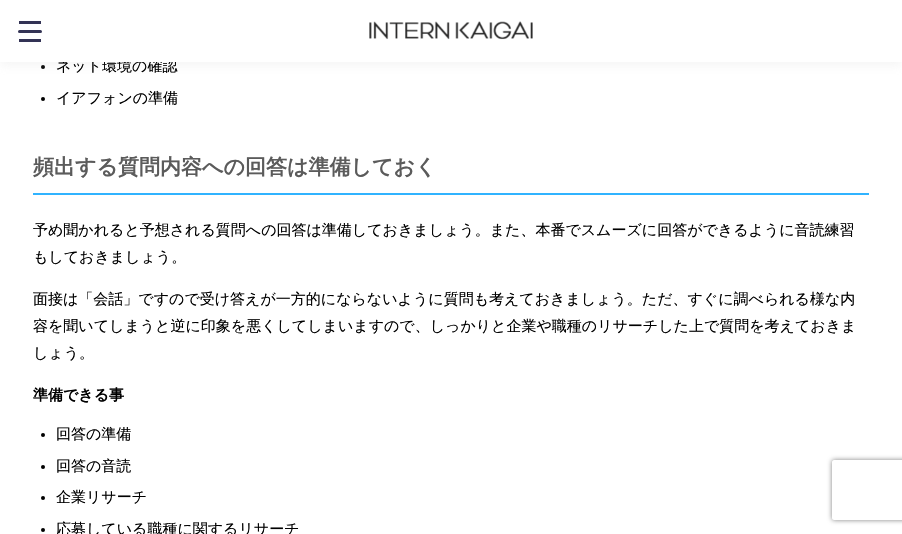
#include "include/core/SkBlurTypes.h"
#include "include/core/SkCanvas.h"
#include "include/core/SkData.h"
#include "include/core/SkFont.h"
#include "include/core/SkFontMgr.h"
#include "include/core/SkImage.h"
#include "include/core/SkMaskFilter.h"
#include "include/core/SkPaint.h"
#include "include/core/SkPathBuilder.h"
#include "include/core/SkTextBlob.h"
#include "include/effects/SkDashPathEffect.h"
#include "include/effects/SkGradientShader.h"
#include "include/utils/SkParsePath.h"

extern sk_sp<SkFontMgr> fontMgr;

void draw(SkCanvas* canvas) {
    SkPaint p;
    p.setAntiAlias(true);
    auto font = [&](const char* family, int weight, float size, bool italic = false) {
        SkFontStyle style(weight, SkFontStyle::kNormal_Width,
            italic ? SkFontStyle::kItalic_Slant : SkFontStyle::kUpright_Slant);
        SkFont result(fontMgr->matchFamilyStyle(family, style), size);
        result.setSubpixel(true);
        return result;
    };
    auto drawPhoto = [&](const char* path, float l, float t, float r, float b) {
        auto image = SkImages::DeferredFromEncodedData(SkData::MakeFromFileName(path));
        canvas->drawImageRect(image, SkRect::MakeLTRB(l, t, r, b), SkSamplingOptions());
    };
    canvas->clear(0xFFFFFFFF);
    p.setColor(0xFF000000);
    canvas->drawCircle(43, 67, 2, p);
    p.setColor(0x33C8C8C8);
    p.setMaskFilter(SkMaskFilter::MakeBlur(kNormal_SkBlurStyle, 5));
    canvas->drawRect(SkRect::MakeLTRB(0, 3, 902, 65), p);
    p.setMaskFilter(nullptr);
    auto font1 = font("WenQuanYi Zen Hei", 500, 15);
    p.setColor(0xFF000000);
    canvas->drawString("ネット環境の確認", 56, 71, font1, p);
    p.setColor(0xFFFFFFFF);
    canvas->drawRect(SkRect::MakeLTRB(0, 0, 902, 62), p);
    p.setColor(0xFF333355);
    canvas->drawRect(SkRect::MakeLTRB(19, 21, 41, 24), p);
    canvas->drawRoundRect(SkRect::MakeLTRB(18, 30, 42, 33), 1.5f, 1.5f, p);
    canvas->drawRect(SkRect::MakeLTRB(19, 39, 41, 42), p);
    drawPhoto("media/1.png", 369, 21, 533, 40);
    p.setColor(0xFF000000);
    canvas->drawCircle(43, 99, 2, p);
    canvas->drawString("イアフォンの準備", 56, 103, font1, p);
    p.setColor(0xFF30B3FF);
    canvas->drawRect(SkRect::MakeLTRB(33, 193, 869, 195), p);
    auto font2 = font("WenQuanYi Zen Hei", 700, 21);
    p.setColor(0xFF5B5B5B);
    canvas->drawString("頻出する質問内容への回答は準備しておく", 33, 174, font2, p);
    p.setColor(0xFF000000);
    {
        const struct { const char* s; float x, y; } items[] = {
            {"予め聞かれると予想される質問への回答は準備しておきましょう。また、本番でスムーズに回答ができるように音読練習", 33, 235},
            {"もしておきましょう。", 33, 262},
            {"面接は「会話」ですので受け答えが一方的にならないように質問も考えておきましょう。ただ、すぐに調べられる様な内", 33, 304},
            {"容を聞いてしまうと逆に印象を悪くしてしまいますので、しっかりと企業や職種のリサーチした上で質問を考えておきま", 33, 331},
            {"しょう。", 33, 358},
        };
        for (auto [s, x, y] : items) {
            canvas->drawString(s, x, y, font1, p);
        }
    }
    auto font3 = font("WenQuanYi Zen Hei", 700, 15);
    canvas->drawString("準備できる事", 33, 400, font3, p);
    canvas->drawCircle(43, 435, 2, p);
    canvas->drawString("回答の準備", 56, 439, font1, p);
    canvas->drawCircle(43, 467, 2, p);
    canvas->drawString("回答の音読", 56, 471, font1, p);
    canvas->drawCircle(43, 498, 2, p);
    canvas->drawString("企業リサーチ", 56, 502, font1, p);
    canvas->drawCircle(43, 530, 2, p);
    canvas->drawString("応募している職種に関するリサーチ", 56, 534, font1, p);
    canvas->save();
    canvas->clipPath(SkPathBuilder(SkPathFillType::kEvenOdd).moveTo(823, 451).lineTo(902, 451).lineTo(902, 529).lineTo(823, 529).close().moveTo(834, 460).lineTo(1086, 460).cubicTo(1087, 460, 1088, 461, 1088, 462).lineTo(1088, 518).cubicTo(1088, 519, 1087, 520, 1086, 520).lineTo(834, 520).cubicTo(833, 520, 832, 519, 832, 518).lineTo(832, 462).cubicTo(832, 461, 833, 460, 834, 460).close().detach(), true);
    p.setColor(0xFF808080);
    p.setMaskFilter(SkMaskFilter::MakeBlur(kNormal_SkBlurStyle, 2.5f));
    canvas->drawRoundRect(SkRect::MakeLTRB(832, 460, 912, 520), 2, 2, p);
    p.setMaskFilter(nullptr);
    canvas->restore();
}
